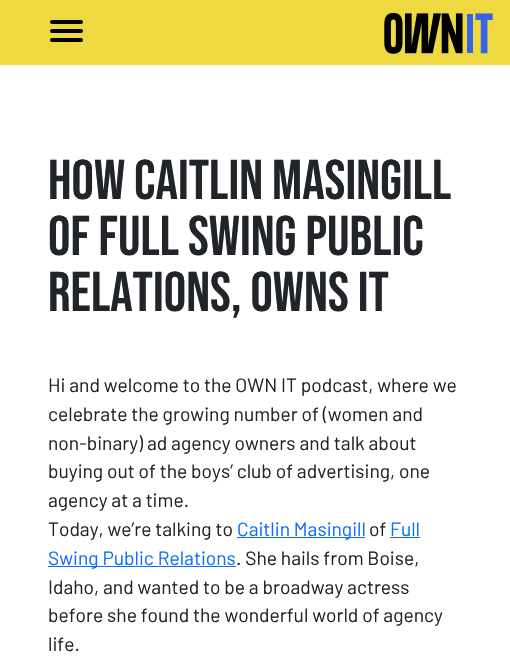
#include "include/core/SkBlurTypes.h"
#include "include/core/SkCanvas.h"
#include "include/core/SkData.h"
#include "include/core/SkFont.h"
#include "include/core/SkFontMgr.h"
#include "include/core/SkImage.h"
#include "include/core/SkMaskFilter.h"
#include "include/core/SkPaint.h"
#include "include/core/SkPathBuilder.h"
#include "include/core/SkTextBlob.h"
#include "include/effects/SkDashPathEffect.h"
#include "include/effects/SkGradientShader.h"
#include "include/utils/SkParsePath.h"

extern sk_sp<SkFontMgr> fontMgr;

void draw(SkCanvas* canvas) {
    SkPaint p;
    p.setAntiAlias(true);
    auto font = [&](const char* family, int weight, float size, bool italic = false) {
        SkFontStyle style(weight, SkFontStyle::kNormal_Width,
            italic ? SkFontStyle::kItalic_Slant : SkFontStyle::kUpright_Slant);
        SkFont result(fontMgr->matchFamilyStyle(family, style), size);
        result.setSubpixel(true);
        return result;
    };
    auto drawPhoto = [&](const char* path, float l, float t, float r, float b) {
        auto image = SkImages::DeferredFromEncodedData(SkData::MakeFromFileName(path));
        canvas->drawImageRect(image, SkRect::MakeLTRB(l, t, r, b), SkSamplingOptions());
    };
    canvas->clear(0xFFFFFFFF);
    p.setColor(0xFFEFD941);
    canvas->drawRect(SkRect::MakeLTRB(0, 0, 510, 65), p);
    p.setColor(0xFF000000);
    canvas->drawRoundRect(SkRect::MakeLTRB(50, 20, 83, 24), 2, 2, p);
    canvas->drawRoundRect(SkRect::MakeLTRB(50, 29, 83, 33), 2, 2, p);
    canvas->drawRoundRect(SkRect::MakeLTRB(50, 38, 83, 42), 2, 2, p);
    drawPhoto("media/1.png", 384, 12, 493, 54);
    auto font1 = font("Bebas Neue", 400, 56);
    p.setColor(0xFF212529);
    {
        const struct { const char* s; float x, y; } items[] = {
            {"How Caitlin Masingill", 48, 199},
            {"of Full Swing Public", 48, 255},
            {"Relations, Owns It", 48, 311},
        };
        for (auto [s, x, y] : items) {
            canvas->drawString(s, x, y, font1, p);
        }
    }
    auto font2 = font("Barlow", 400, 19.2f);
    {
        const struct { const char* s; float x, y; } items[] = {
            {"Hi and welcome to the OWN IT podcast, where we", 48, 392},
            {"celebrate the growing number of (women and", 48, 421},
            {"non-binary) ad agency owners and talk about", 48, 450},
            {"buying out of the boys’ club of advertising, one", 48, 478},
            {"agency at a time.", 48, 507},
            {"Today, we’re talking to", 48, 536},
        };
        for (auto [s, x, y] : items) {
            canvas->drawString(s, x, y, font2, p);
        }
    }
    p.setColor(0xFF0D6EFD);
    canvas->drawRect(SkRect::MakeLTRB(237, 537, 365, 538), p);
    canvas->drawString("Caitlin Masingill", 237, 536, font2, p);
    p.setColor(0xFF212529);
    canvas->drawString("of", 369, 536, font2, p);
    p.setColor(0xFF0D6EFD);
    canvas->drawString("Full", 390, 536, font2, p);
    canvas->drawRect(SkRect::MakeLTRB(390, 537, 420, 538), p);
    canvas->drawRect(SkRect::MakeLTRB(48, 566, 236, 567), p);
    canvas->drawString("Swing Public Relations", 48, 565, font2, p);
    p.setColor(0xFF212529);
    {
        const struct { const char* s; float x, y; } items[] = {
            {". She hails from Boise,", 236, 565},
            {"Idaho, and wanted to be a broadway actress", 48, 594},
            {"before she found the wonderful world of agency", 48, 622},
            {"life.", 48, 651},
        };
        for (auto [s, x, y] : items) {
            canvas->drawString(s, x, y, font2, p);
        }
    }
}
